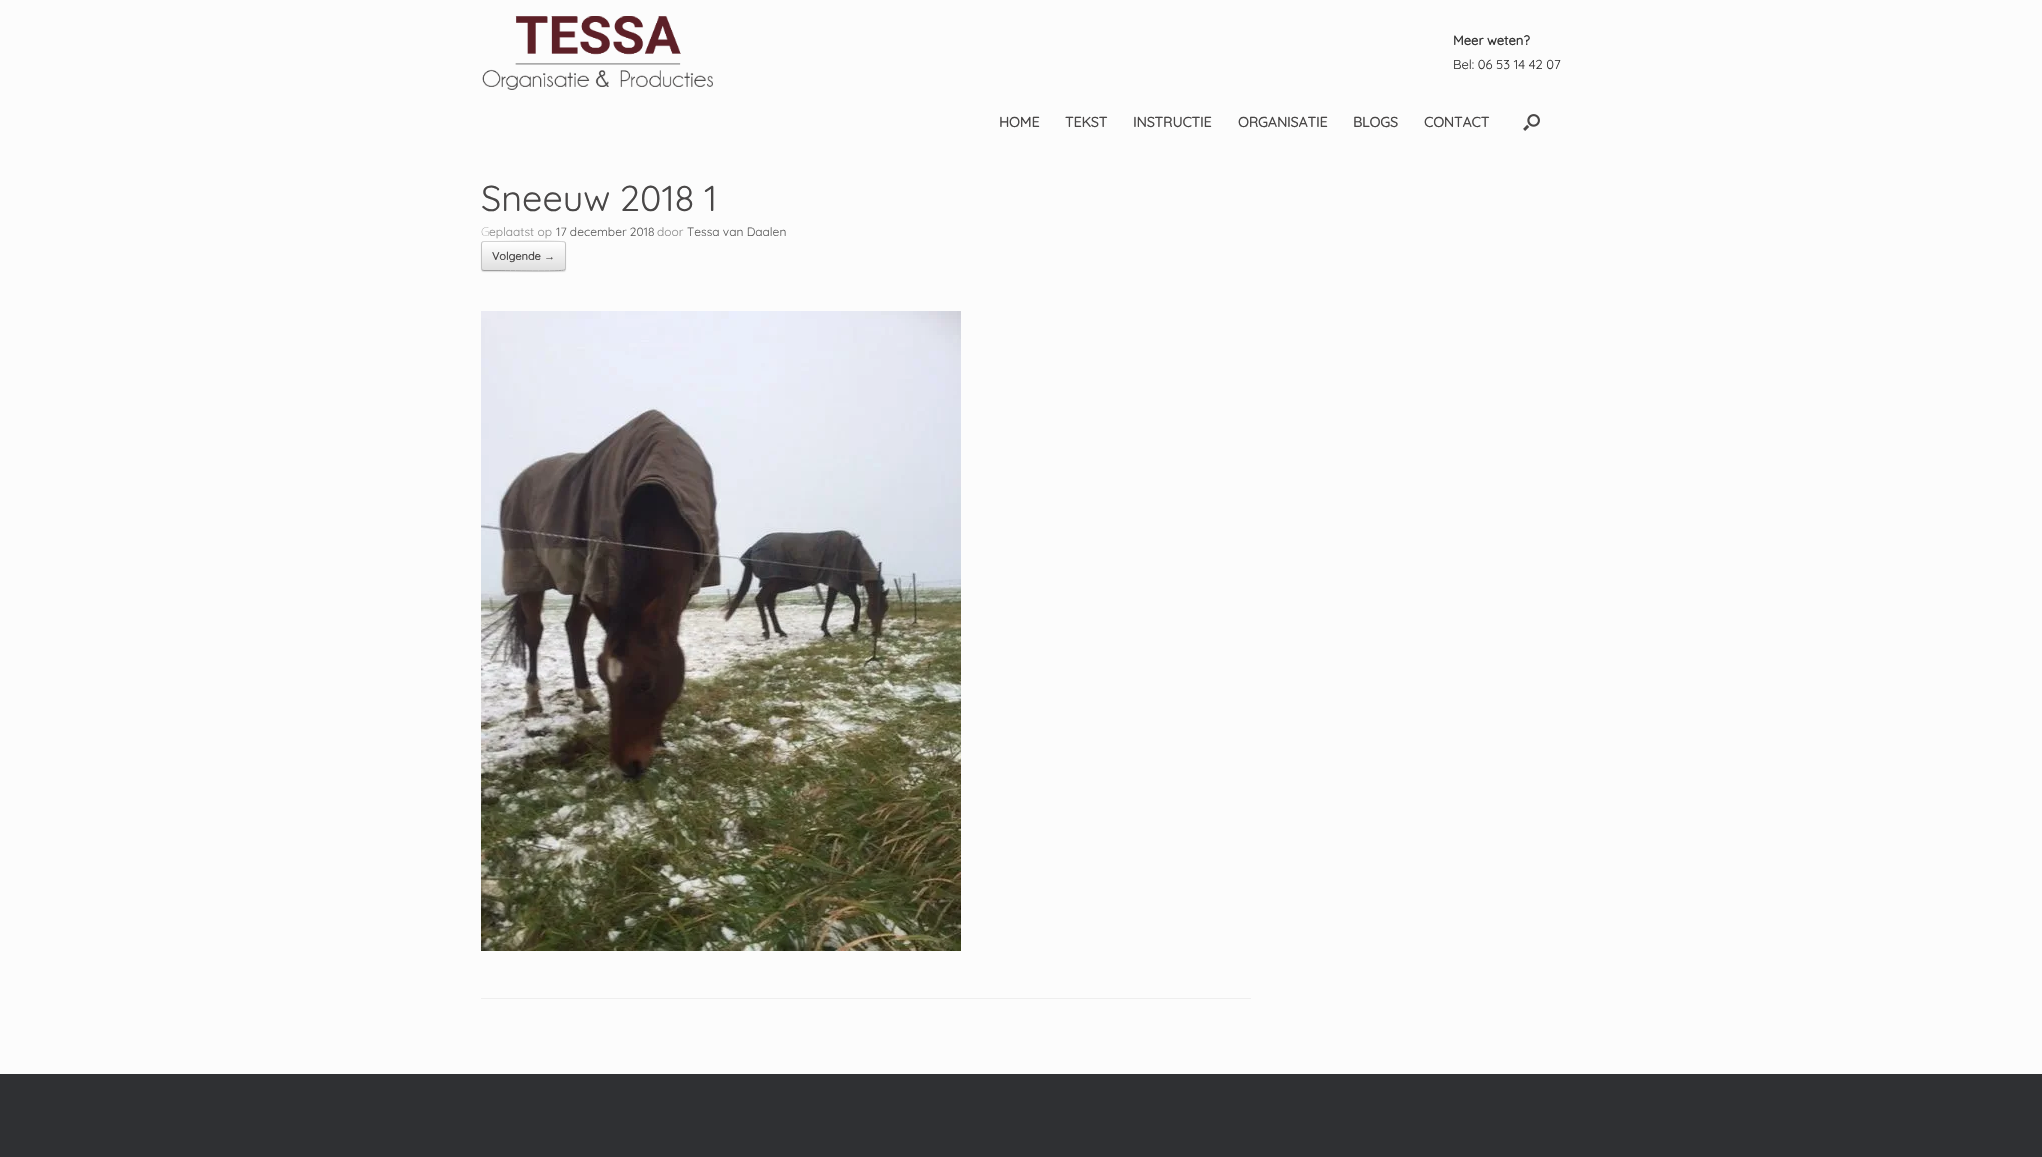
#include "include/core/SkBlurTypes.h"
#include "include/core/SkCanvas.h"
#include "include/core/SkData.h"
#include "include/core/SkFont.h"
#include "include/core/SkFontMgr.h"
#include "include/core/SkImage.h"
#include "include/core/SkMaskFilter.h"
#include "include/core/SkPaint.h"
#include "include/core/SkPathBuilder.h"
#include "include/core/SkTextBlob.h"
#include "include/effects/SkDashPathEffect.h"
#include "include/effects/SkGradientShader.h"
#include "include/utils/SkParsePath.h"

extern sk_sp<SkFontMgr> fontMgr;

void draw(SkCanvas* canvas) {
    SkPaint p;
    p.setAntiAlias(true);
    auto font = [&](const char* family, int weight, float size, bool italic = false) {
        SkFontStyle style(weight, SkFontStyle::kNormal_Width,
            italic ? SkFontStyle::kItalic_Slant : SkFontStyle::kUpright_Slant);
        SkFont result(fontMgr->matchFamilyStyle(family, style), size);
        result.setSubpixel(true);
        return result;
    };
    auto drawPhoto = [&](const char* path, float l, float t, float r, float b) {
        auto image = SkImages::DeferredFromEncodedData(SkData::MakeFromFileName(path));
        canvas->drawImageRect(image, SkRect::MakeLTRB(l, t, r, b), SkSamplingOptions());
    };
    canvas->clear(0xFF2F3033);
    p.setColor(0xFFFCFCFC);
    canvas->drawRect(SkRect::MakeLTRB(0, 0, 2042, 1074), p);
    drawPhoto("media/1.png", 482, 16, 713, 90);
    auto font1 = font("Quicksand", 700, 13);
    p.setColor(0xFF333333);
    canvas->drawString("Meer weten?", 1453, 45, font1, p);
    auto font2 = font("Quicksand", 300, 13);
    canvas->drawString("Bel: 06 53 14 42 07", 1453, 69, font2, p);
    auto font3 = font("Quicksand", 700, 14);
    p.setColor(0xFF494747);
    {
        const struct { const char* s; float x, y; } items[] = {
            {"HOME", 999, 127},
            {"TEKST", 1065, 127},
            {"INSTRUCTIE", 1133, 127},
            {"ORGANISATIE", 1238, 127},
            {"BLOGS", 1353, 127},
            {"CONTACT", 1424, 127},
        };
        for (auto [s, x, y] : items) {
            canvas->drawString(s, x, y, font3, p);
        }
    }
    drawPhoto("media/2.png", 1523, 114, 1540, 131);
    p.setColor(0xFFEEEEEE);
    canvas->drawRect(SkRect::MakeLTRB(481, 998, 1251, 999), p);
    auto font4 = font("Quicksand", 300, 36);
    p.setColor(0xFF494747);
    canvas->drawString("Sneeuw 2018 1", 481, 211, font4, p);
    auto font5 = font("Noto Sans", 100, 12);
    p.setColor(0xFF8F8F8F);
    canvas->drawString("G", 481, 236, font5, p);
    auto font6 = font("Quicksand", 300, 12);
    canvas->drawString("eplaatst op", 489, 236, font6, p);
    p.setColor(0xFF5E5E5E);
    canvas->drawString("17 december 2018", 556, 236, font6, p);
    p.setColor(0xFF8F8F8F);
    canvas->drawString("door", 657, 236, font6, p);
    p.setColor(0xFF5E5E5E);
    canvas->drawString("Tessa van Daalen", 687, 236, font6, p);
    p.setColor(0x1F000000);
    p.setMaskFilter(SkMaskFilter::MakeBlur(kNormal_SkBlurStyle, 0.5f));
    canvas->drawRoundRect(SkRect::MakeLTRB(481, 242, 566, 272), 3, 3, p);
    p.setMaskFilter(nullptr);
    canvas->save();
    canvas->clipPath(SkPathBuilder().moveTo(484, 241).lineTo(563, 241).cubicTo(564.5f, 241, 566, 242.5f, 566, 244).lineTo(566, 268).cubicTo(566, 269.5f, 564.5f, 271, 563, 271).lineTo(484, 271).cubicTo(482.5f, 271, 481, 269.5f, 481, 268).lineTo(481, 244).cubicTo(481, 242.5f, 482.5f, 241, 484, 241).close().detach(), true);
    {
        const SkColor colors[] = {0xFFDFDFDF, 0xFFFFFFFF};
        const float stops[] = {0, 1};
        const SkPoint ends[] = {{482, 242}, {482, 214}};
        p.setShader(SkGradientShader::MakeLinear(ends, colors, stops, 2, SkTileMode::kClamp));
        p.setAlpha(255);
    }
    canvas->drawRect(SkRect::MakeLTRB(481, 241, 566, 242), p);
    {
        const SkColor colors[] = {0xFFDFDFDF, 0xFFFFFFFF};
        const float stops[] = {0, 1};
        const SkPoint ends[] = {{482, 270}, {482, 242}};
        p.setShader(SkGradientShader::MakeLinear(ends, colors, stops, 2, SkTileMode::kClamp));
        p.setAlpha(255);
    }
    canvas->drawRect(SkRect::MakeLTRB(481, 242, 566, 270), p);
    {
        const SkColor colors[] = {0xFFDFDFDF, 0xFFFFFFFF};
        const float stops[] = {0, 1};
        const SkPoint ends[] = {{482, 298}, {482, 270}};
        p.setShader(SkGradientShader::MakeLinear(ends, colors, stops, 2, SkTileMode::kClamp));
        p.setAlpha(255);
    }
    canvas->drawRect(SkRect::MakeLTRB(481, 270, 566, 271), p);
    canvas->restore();
    p.setStyle(SkPaint::kStroke_Style);
    p.setStrokeWidth(1);
    p.setShader(nullptr);
    p.setColor(0xFFD2D2D2);
    canvas->drawPath(SkPathBuilder().moveTo(482, 242).lineTo(484, 241.5f).lineTo(497, 241.5f).cubicTo(504.5f, 241.5f, 562.5f, 240.5f, 564.5f, 242).lineTo(565, 242).detach(), p);
    p.setColor(0xFFC3C3C3);
    canvas->drawPath(SkPathBuilder().moveTo(565, 242).cubicTo(565, 242.5f, 565.5f, 243.5f, 565.5f, 244).lineTo(565.5f, 268).cubicTo(565.5f, 268.5f, 565, 269.5f, 565, 270).detach(), p);
    p.setColor(0xFF9F9F9F);
    canvas->drawPath(SkPathBuilder().moveTo(565, 270).lineTo(564.5f, 270).cubicTo(562.5f, 271.5f, 504.5f, 270.5f, 497, 270.5f).lineTo(484, 270.5f).lineTo(482, 270).detach(), p);
    p.setColor(0xFFC3C3C3);
    canvas->drawPath(SkPathBuilder().moveTo(482, 270).cubicTo(482, 269.5f, 481.5f, 268.5f, 481.5f, 268).lineTo(481.5f, 244).cubicTo(481.5f, 243.5f, 482, 242.5f, 482, 242).detach(), p);
    auto font7 = font("Quicksand", 700, 11);
    p.setStyle(SkPaint::kFill_Style);
    p.setColor(0xFF494747);
    canvas->drawString("Volgende", 492, 260, font7, p);
    auto font8 = font("Liberation Serif", 700, 11);
    canvas->drawString("→", 544, 260, font8, p);
    drawPhoto("media/3.png", 481, 311, 961, 951);
}
